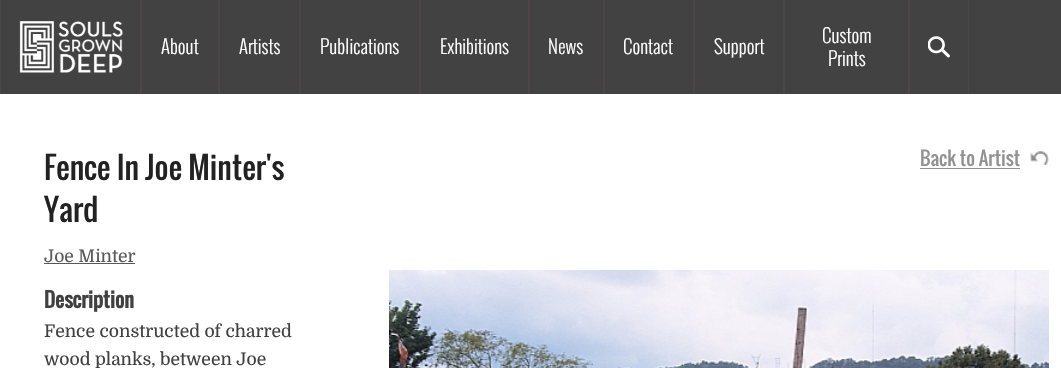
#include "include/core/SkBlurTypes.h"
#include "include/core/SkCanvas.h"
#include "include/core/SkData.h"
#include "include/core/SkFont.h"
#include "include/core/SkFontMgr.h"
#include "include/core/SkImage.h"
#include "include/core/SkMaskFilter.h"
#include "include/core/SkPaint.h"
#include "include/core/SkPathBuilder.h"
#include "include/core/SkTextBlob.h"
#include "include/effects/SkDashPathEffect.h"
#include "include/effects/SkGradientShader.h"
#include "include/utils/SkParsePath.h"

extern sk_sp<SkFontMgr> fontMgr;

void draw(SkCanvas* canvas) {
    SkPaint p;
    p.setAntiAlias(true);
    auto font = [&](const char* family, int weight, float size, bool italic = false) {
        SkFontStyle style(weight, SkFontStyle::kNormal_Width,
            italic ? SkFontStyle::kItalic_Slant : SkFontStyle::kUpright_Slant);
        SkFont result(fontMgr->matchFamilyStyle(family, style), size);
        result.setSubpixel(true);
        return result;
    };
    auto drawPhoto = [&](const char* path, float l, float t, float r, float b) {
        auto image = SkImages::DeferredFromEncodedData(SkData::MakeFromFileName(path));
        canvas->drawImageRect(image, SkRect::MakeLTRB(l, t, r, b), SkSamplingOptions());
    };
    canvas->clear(0xFFFFFFFF);
    {
        const struct { float l, t, r, b; SkColor color; } items[] = {
            {1, 0, 1061, 94, 0xFF424242},
            {140, 0, 142, 94, 0xFF4C4745},
            {0, 0, 1, 94, 0xFF4C4745},
        };
        for (auto [l, t, r, b, color] : items) {
            p.setColor(color);
            canvas->drawRect(SkRect::MakeLTRB(l, t, r, b), p);
        }
    }
    drawPhoto("media/1.png", 19, 21, 123, 73);
    canvas->drawRect(SkRect::MakeLTRB(218, 0, 220, 94), p);
    auto font1 = font("Oswald", 300, 18.75f);
    p.setColor(0xFFFFFFFF);
    canvas->drawString("About", 161, 54, font1, p);
    canvas->drawString("Artists", 239, 54, font1, p);
    p.setColor(0xFF4C4745);
    canvas->drawRect(SkRect::MakeLTRB(419, 0, 421, 94), p);
    canvas->drawRect(SkRect::MakeLTRB(299, 0, 301, 94), p);
    p.setColor(0xFFFFFFFF);
    canvas->drawString("Publications", 320, 54, font1, p);
    canvas->drawString("Exhibitions", 440, 54, font1, p);
    p.setColor(0xFF4C4745);
    canvas->drawRect(SkRect::MakeLTRB(603, 0, 605, 94), p);
    canvas->drawRect(SkRect::MakeLTRB(528, 0, 530, 94), p);
    p.setColor(0xFFFFFFFF);
    canvas->drawString("News", 548, 54, font1, p);
    p.setColor(0xFF4C4745);
    canvas->drawRect(SkRect::MakeLTRB(693, 0, 695, 94), p);
    p.setColor(0xFFFFFFFF);
    canvas->drawString("Contact", 623, 54, font1, p);
    canvas->drawString("Support", 714, 54, font1, p);
    p.setColor(0xFF4C4745);
    canvas->drawRect(SkRect::MakeLTRB(908, 0, 910, 94), p);
    canvas->drawRect(SkRect::MakeLTRB(783, 0, 785, 94), p);
    p.setColor(0xFFFFFFFF);
    canvas->drawString("Custom", 822, 43, font1, p);
    canvas->drawString("Prints", 828, 66, font1, p);
    p.setColor(0xFF4C4745);
    canvas->drawRect(SkRect::MakeLTRB(968, 0, 969, 94), p);
    drawPhoto("media/2.png", 928, 36, 950, 58);
    auto font2 = font("Oswald", 400, 30);
    p.setColor(0xFF222222);
    canvas->drawString("Fence In Joe Minter's", 44, 180, font2, p);
    canvas->drawString("Yard", 44, 222, font2, p);
    drawPhoto("media/3.png", 1030, 151, 1049, 165);
    auto font3 = font("Oswald", 400, 18.75f);
    p.setColor(0xFF929292);
    canvas->drawString("Back to Artist", 920, 166, font3, p);
    canvas->drawRect(SkRect::MakeLTRB(920, 168, 1020, 169), p);
    auto font4 = font("Domine", 400, 17.5f);
    p.setColor(0xFF595959);
    canvas->drawString("Joe Minter", 44, 262, font4, p);
    canvas->drawRect(SkRect::MakeLTRB(44, 263, 135, 264), p);
    auto font5 = font("Oswald", 700, 20);
    p.setColor(0xFF404040);
    canvas->drawString("Description", 44, 308, font5, p);
    canvas->drawString("Fence constructed of charred", 44, 337, font4, p);
    canvas->drawString("wood planks, between Joe", 44, 365, font4, p);
    drawPhoto("media/4.png", 389, 270, 1049, 368);
}
